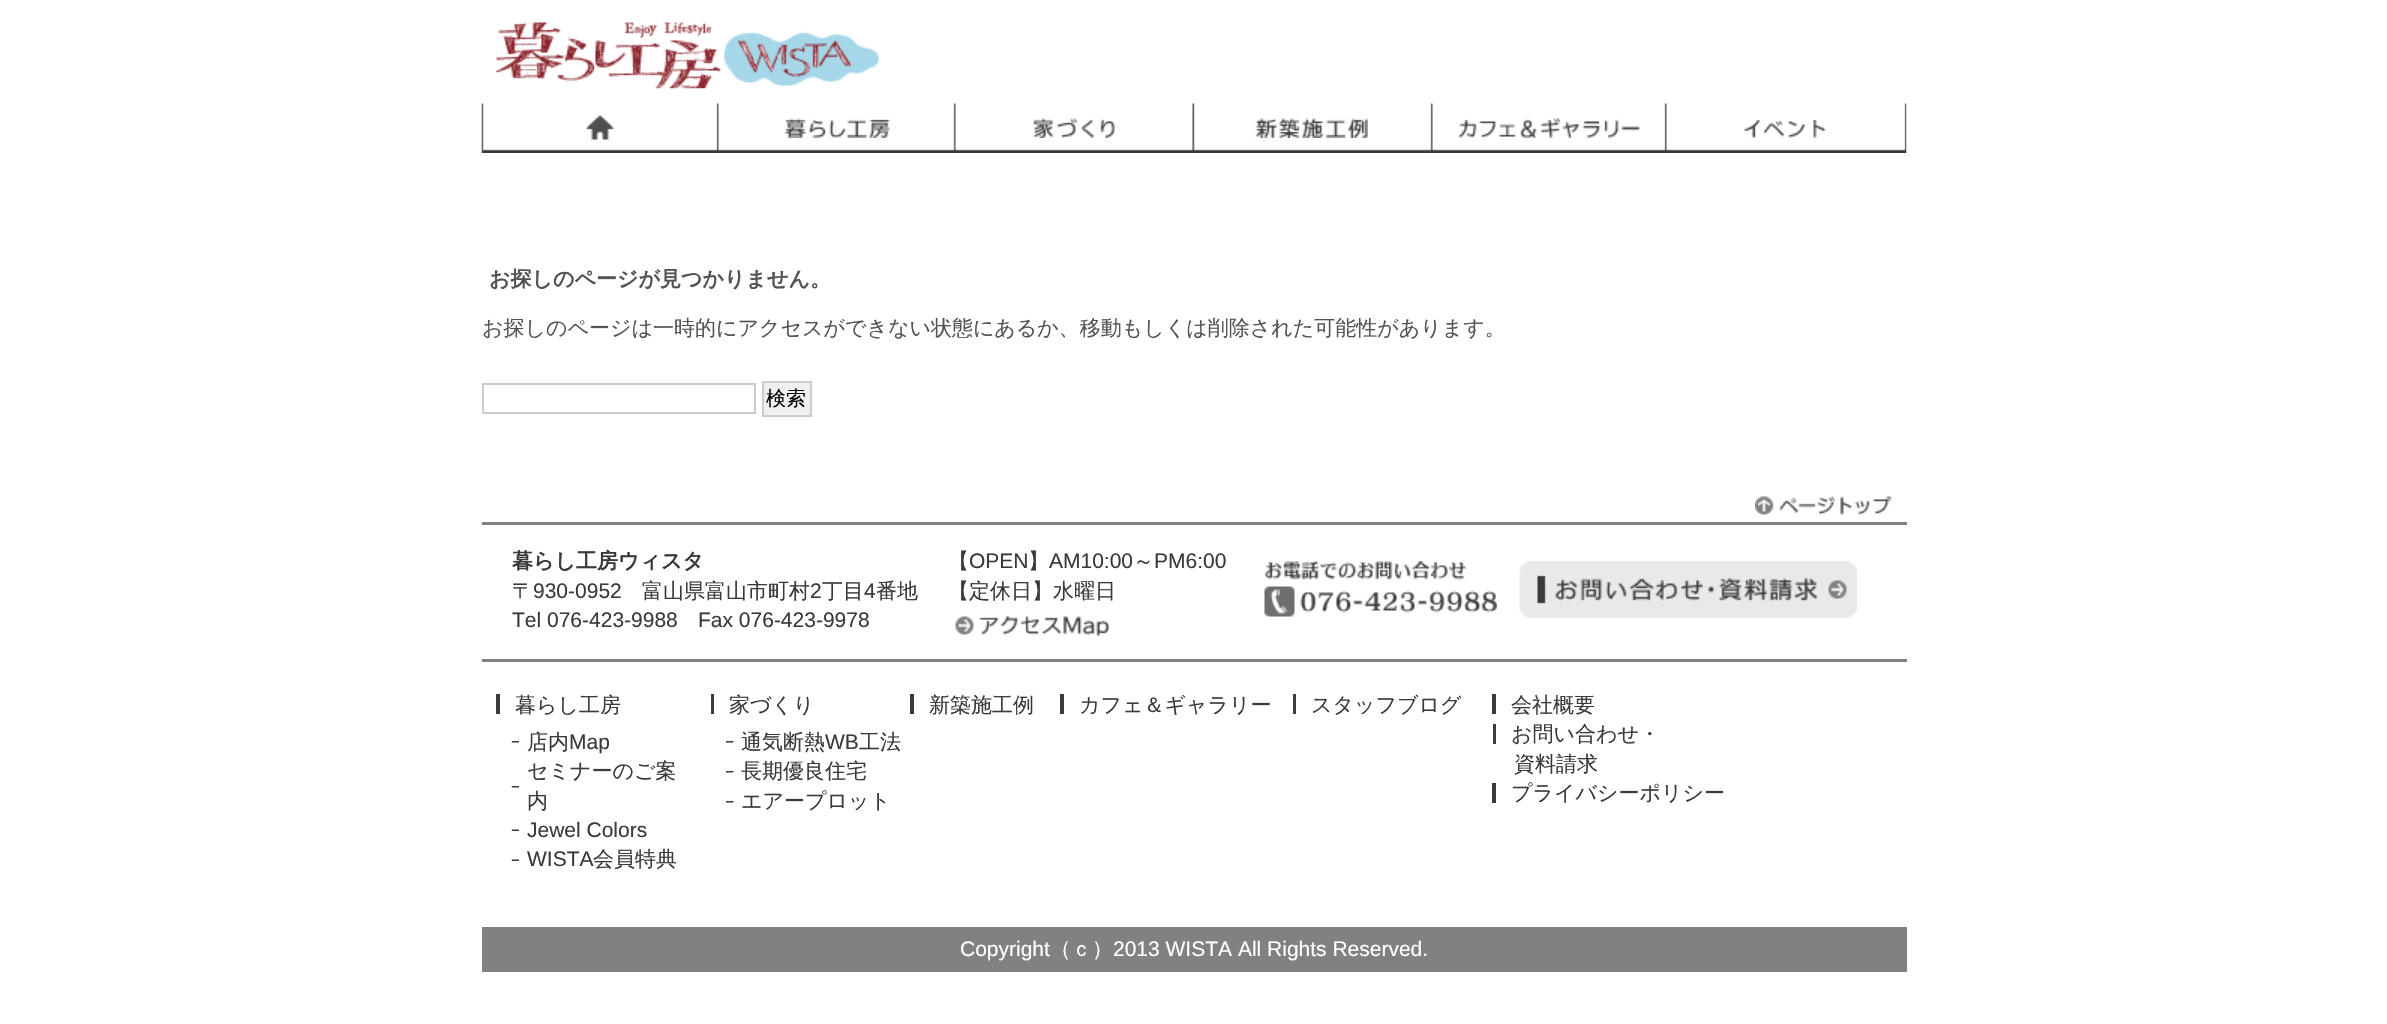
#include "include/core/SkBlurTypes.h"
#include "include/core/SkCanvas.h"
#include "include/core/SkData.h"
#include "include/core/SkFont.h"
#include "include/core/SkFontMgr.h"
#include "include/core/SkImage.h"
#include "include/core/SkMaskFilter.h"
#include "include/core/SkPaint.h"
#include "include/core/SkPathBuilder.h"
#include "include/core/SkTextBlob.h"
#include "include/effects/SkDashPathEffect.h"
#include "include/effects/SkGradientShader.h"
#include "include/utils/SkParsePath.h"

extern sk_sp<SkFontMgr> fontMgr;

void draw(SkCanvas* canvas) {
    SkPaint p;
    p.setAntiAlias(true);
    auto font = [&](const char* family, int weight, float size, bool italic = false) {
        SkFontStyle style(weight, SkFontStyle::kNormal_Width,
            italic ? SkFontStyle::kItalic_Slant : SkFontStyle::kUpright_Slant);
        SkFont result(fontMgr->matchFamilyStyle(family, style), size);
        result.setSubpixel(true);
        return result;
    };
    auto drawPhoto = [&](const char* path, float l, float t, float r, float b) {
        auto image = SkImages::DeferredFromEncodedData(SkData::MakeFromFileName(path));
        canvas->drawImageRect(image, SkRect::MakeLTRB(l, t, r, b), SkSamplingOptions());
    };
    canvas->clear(0xFFFFFFFF);
    drawPhoto("media/1.png", 496, 22, 879, 89);
    drawPhoto("media/2.png", 481, 103, 1907, 153);
    drawPhoto("media/3.png", 586, 115, 614, 140);
    drawPhoto("media/4.png", 784, 118, 890, 138);
    drawPhoto("media/5.png", 1033, 118, 1115, 138);
    drawPhoto("media/6.png", 1255, 118, 1368, 138);
    drawPhoto("media/7.png", 1458, 118, 1640, 138);
    drawPhoto("media/8.png", 1744, 120, 1826, 138);
    auto font1 = font("WenQuanYi Zen Hei", 700, 21);
    p.setColor(0xFF535353);
    canvas->drawString("お探しのページが見つかりません。", 489, 286, font1, p);
    auto font2 = font("WenQuanYi Zen Hei", 500, 21);
    canvas->drawString("お探しのページは一時的にアクセスができない状態にあるか、移動もしくは削除された可能性があります。", 482, 335, font2, p);
    p.setStyle(SkPaint::kStroke_Style);
    p.setStrokeWidth(2);
    p.setColor(0xFFCCCCCC);
    canvas->drawRect(SkRect::MakeLTRB(483, 384, 755, 413), p);
    p.setStyle(SkPaint::kFill_Style);
    p.setColor(0xFFEFEFEF);
    canvas->drawRect(SkRect::MakeLTRB(763, 382, 811, 416), p);
    p.setStyle(SkPaint::kStroke_Style);
    p.setColor(0xFFCCCCCC);
    canvas->drawRect(SkRect::MakeLTRB(763, 382, 811, 416), p);
    auto font3 = font("WenQuanYi Zen Hei", 500, 20);
    p.setStyle(SkPaint::kFill_Style);
    p.setColor(0xFF000000);
    canvas->drawString("検索", 766, 405, font3, p);
    drawPhoto("media/9.png", 1755, 496, 1892, 515);
    p.setColor(0xFF818181);
    canvas->drawRect(SkRect::MakeLTRB(482, 522, 1907, 525), p);
    canvas->drawRect(SkRect::MakeLTRB(482, 659, 1907, 662), p);
    p.setColor(0xFF3A3A3A);
    canvas->drawString("暮らし工房ウィスタ", 512, 568, font1, p);
    canvas->drawString("〒", 512, 598, font2, p);
    auto font4 = font("Liberation Sans", 400, 21);
    canvas->drawString("930-0952", 533, 598, font4, p);
    canvas->drawString("富山県富山市町村", 642, 598, font2, p);
    canvas->drawString("2", 810, 598, font4, p);
    canvas->drawString("丁目", 822, 598, font2, p);
    canvas->drawString("4", 864, 598, font4, p);
    canvas->drawString("番地", 876, 598, font2, p);
    canvas->drawString("Tel 076-423-9988", 512, 627, font4, p);
    canvas->drawString("Fax 076-423-9978", 698, 627, font4, p);
    canvas->drawString("【", 948, 568, font2, p);
    canvas->drawString("OPEN", 969, 568, font4, p);
    canvas->drawString("】", 1028, 568, font2, p);
    canvas->drawString("AM10:00", 1049, 568, font4, p);
    canvas->drawString("～", 1133, 568, font2, p);
    canvas->drawString("PM6:00", 1154, 568, font4, p);
    canvas->drawString("【定休日】水曜日", 948, 598, font2, p);
    drawPhoto("media/10.png", 955, 616, 1109, 636);
    drawPhoto("media/11.png", 1264, 561, 1497, 617);
    drawPhoto("media/12.png", 1519, 561, 1857, 618);
    canvas->drawString("暮らし工房", 515, 712, font2, p);
    p.setColor(0xFF3B3B3B);
    canvas->drawRect(SkRect::MakeLTRB(496, 694, 500, 714), p);
    drawPhoto("media/13.png", 511, 741, 519, 743);
    p.setColor(0xFF3A3A3A);
    canvas->drawString("店内", 527, 749, font2, p);
    canvas->drawString("Map", 569, 749, font4, p);
    drawPhoto("media/13.png", 511, 786, 519, 788);
    canvas->drawString("セミナーのご案", 527, 778, font2, p);
    canvas->drawString("内", 527, 808, font2, p);
    drawPhoto("media/14.png", 511, 829, 519, 831);
    canvas->drawString("Jewel Colors", 527, 837, font4, p);
    drawPhoto("media/14.png", 511, 859, 519, 861);
    canvas->drawString("WISTA", 527, 866, font4, p);
    canvas->drawString("会員特典", 593, 866, font2, p);
    canvas->drawString("家づくり", 729, 712, font2, p);
    p.setColor(0xFF3B3B3B);
    canvas->drawRect(SkRect::MakeLTRB(711, 694, 714, 714), p);
    drawPhoto("media/15.png", 726, 741, 734, 743);
    p.setColor(0xFF3A3A3A);
    canvas->drawString("通気断熱", 741, 749, font2, p);
    canvas->drawString("WB", 825, 749, font4, p);
    canvas->drawString("工法", 859, 749, font2, p);
    drawPhoto("media/15.png", 726, 771, 734, 773);
    canvas->drawString("長期優良住宅", 741, 778, font2, p);
    drawPhoto("media/15.png", 726, 801, 734, 803);
    canvas->drawString("エアープロット", 741, 808, font2, p);
    canvas->drawString("新築施工例", 929, 712, font2, p);
    p.setColor(0xFF3B3B3B);
    canvas->drawRect(SkRect::MakeLTRB(910, 694, 914, 714), p);
    p.setColor(0xFF3A3A3A);
    canvas->drawString("カフェ＆ギャラリー", 1079, 712, font2, p);
    p.setColor(0xFF3B3B3B);
    canvas->drawRect(SkRect::MakeLTRB(1060, 694, 1064, 714), p);
    p.setColor(0xFF3A3A3A);
    canvas->drawString("スタッフブログ", 1311, 712, font2, p);
    p.setColor(0xFF3B3B3B);
    canvas->drawRect(SkRect::MakeLTRB(1293, 694, 1296, 714), p);
    p.setColor(0xFF3A3A3A);
    canvas->drawString("会社概要", 1511, 712, font2, p);
    p.setColor(0xFF3B3B3B);
    canvas->drawRect(SkRect::MakeLTRB(1492, 694, 1496, 714), p);
    p.setColor(0xFF3A3A3A);
    canvas->drawString("お問い合わせ・", 1511, 741, font2, p);
    p.setColor(0xFF3B3B3B);
    canvas->drawRect(SkRect::MakeLTRB(1493, 724, 1496, 744), p);
    p.setColor(0xFF3A3A3A);
    canvas->drawString("資料請求", 1514, 771, font2, p);
    canvas->drawString("プライバシーポリシー", 1511, 800, font2, p);
    p.setColor(0xFF3B3B3B);
    canvas->drawRect(SkRect::MakeLTRB(1492, 783, 1496, 803), p);
    p.setColor(0xFF818181);
    canvas->drawRect(SkRect::MakeLTRB(482, 927, 1907, 972), p);
    p.setColor(0xFFFFFFFF);
    canvas->drawString("Copyright", 960, 956, font4, p);
    canvas->drawString("（ｃ）", 1050, 956, font2, p);
    canvas->drawString("2013 WISTA All Rights Reserved.", 1113, 956, font4, p);
}
